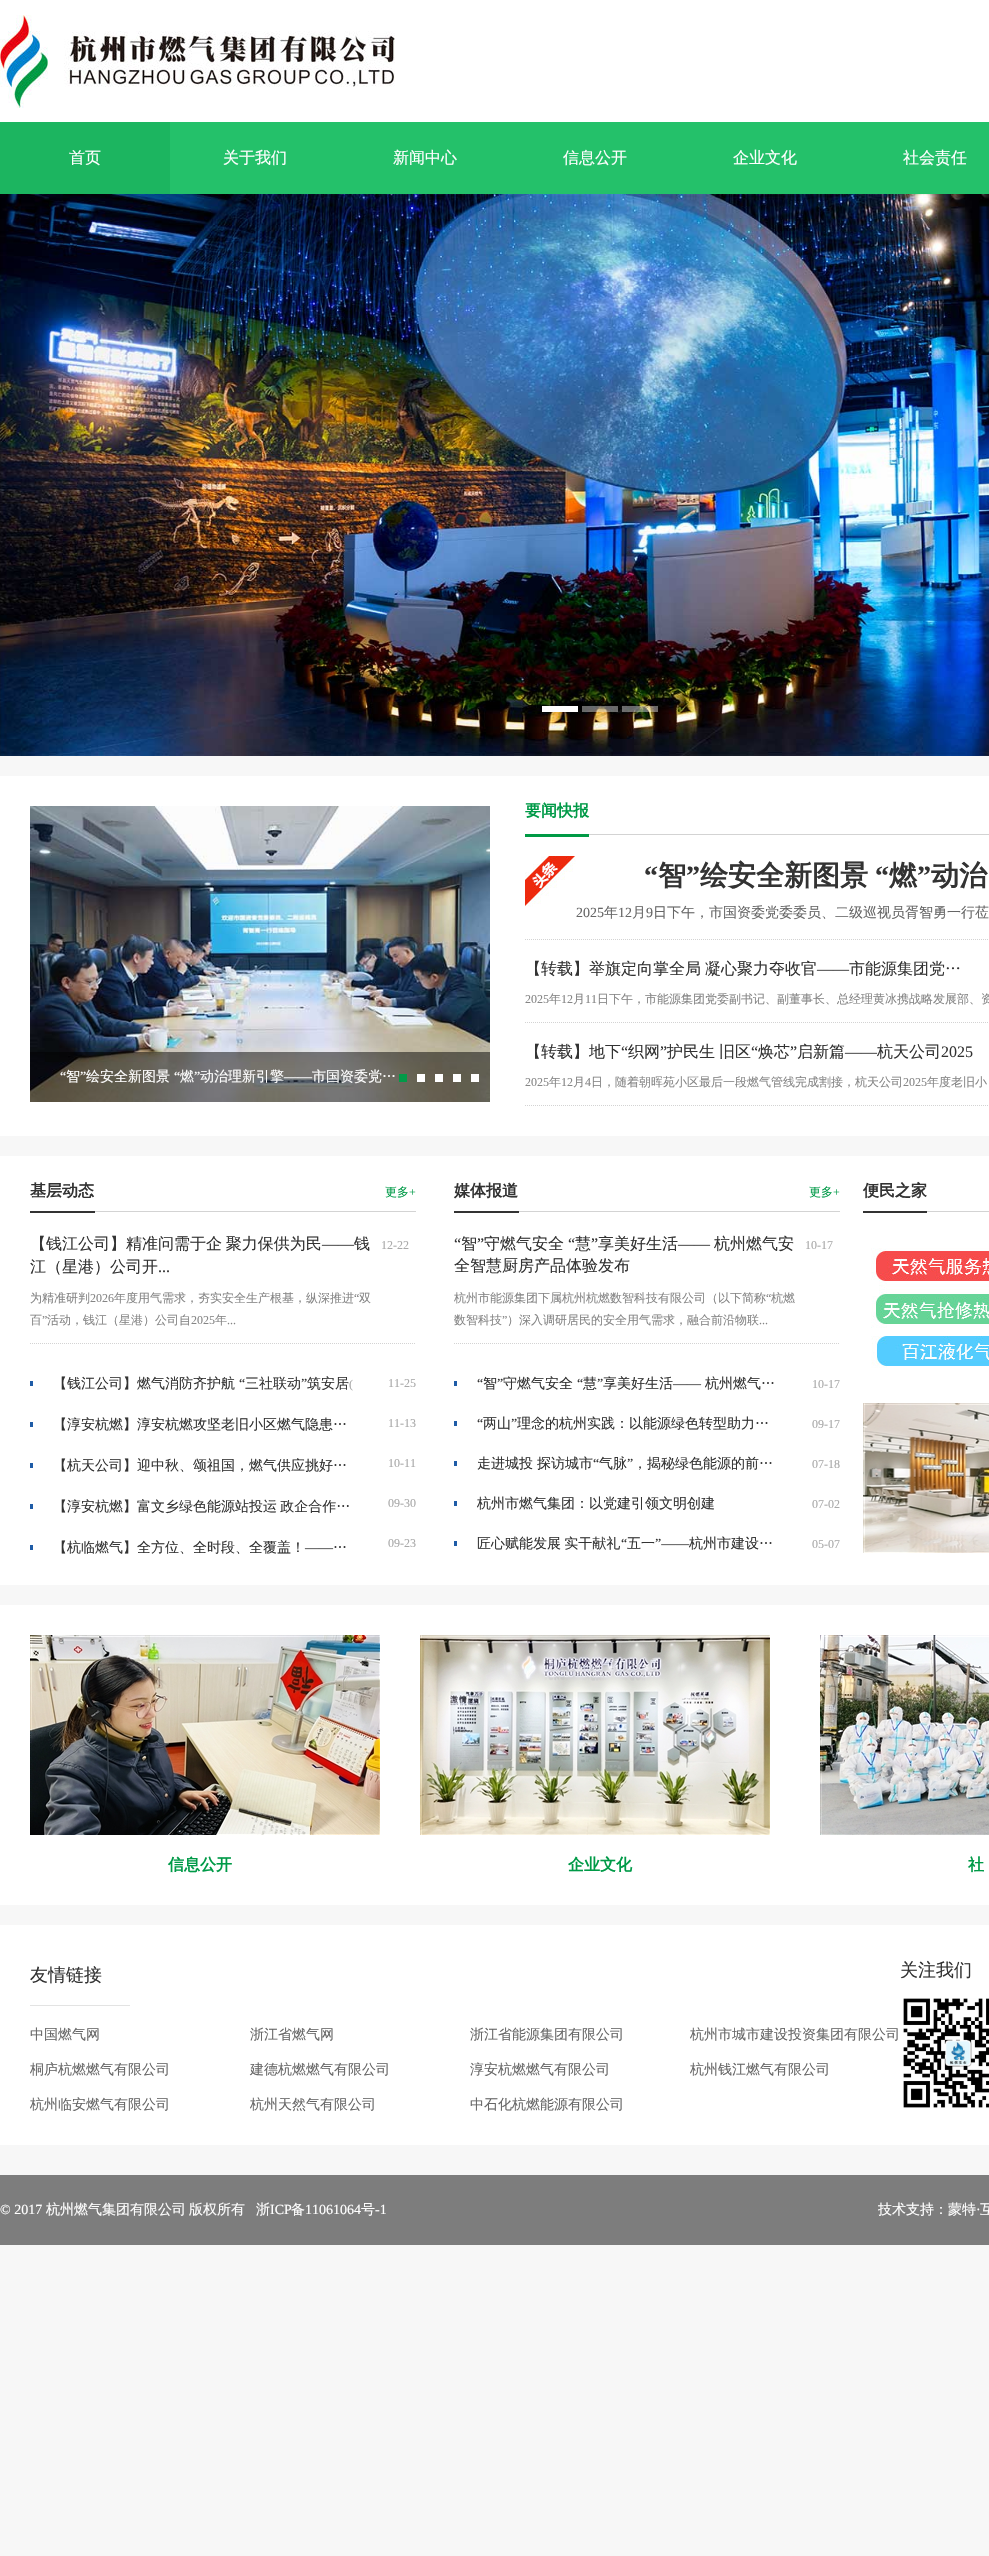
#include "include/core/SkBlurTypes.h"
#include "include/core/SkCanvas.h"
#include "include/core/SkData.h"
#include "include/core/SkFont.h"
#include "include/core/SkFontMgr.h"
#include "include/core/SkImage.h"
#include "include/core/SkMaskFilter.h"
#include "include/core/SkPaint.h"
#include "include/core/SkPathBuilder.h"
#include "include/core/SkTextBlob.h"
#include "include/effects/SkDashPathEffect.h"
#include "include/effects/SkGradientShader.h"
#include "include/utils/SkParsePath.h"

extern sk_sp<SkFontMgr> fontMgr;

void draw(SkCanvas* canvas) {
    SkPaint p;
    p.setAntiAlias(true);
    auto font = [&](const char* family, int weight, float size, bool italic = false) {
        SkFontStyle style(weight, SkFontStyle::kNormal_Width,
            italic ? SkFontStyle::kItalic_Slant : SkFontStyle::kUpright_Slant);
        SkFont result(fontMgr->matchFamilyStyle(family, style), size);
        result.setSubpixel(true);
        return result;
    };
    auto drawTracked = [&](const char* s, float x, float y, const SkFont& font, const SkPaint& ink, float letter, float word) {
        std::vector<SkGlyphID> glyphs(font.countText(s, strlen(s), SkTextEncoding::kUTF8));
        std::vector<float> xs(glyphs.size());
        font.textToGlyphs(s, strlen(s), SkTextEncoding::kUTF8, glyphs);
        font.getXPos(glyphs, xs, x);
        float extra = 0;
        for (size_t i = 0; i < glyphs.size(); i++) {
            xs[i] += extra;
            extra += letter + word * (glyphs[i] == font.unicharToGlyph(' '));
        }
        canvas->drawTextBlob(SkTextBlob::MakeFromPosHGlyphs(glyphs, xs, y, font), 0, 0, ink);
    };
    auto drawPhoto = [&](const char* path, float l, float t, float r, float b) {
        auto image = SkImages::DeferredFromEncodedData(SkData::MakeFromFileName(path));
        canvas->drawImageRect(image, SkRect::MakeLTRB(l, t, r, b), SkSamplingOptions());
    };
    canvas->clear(0xFFF7F7F7);
    p.setColor(0xFFFFFFFF);
    canvas->drawRect(SkRect::MakeLTRB(0, 0, 989, 122), p);
    drawPhoto("media/1.png", 0, 15, 395, 108);
    p.setColor(0xFF24C16A);
    canvas->drawRect(SkRect::MakeLTRB(170, 122, 989, 194), p);
    p.setColor(0xFF1CB560);
    canvas->drawRect(SkRect::MakeLTRB(0, 122, 170, 194), p);
    auto font1 = font("WenQuanYi Zen Hei", 500, 16);
    p.setColor(0xFFFFFFFF);
    {
        const struct { const char* s; float x, y; } items[] = {
            {"首页", 69, 163},
            {"关于我们", 223, 163},
            {"新闻中心", 393, 163},
            {"信息公开", 563, 163},
            {"企业文化", 733, 163},
            {"社会责任", 903, 163},
        };
        for (auto [s, x, y] : items) {
            canvas->drawString(s, x, y, font1, p);
        }
    }
    drawPhoto("media/2.png", 0, 194, 989, 756);
    {
        const struct { float l, t, r, b; SkColor color; } items[] = {
            {542, 706, 578, 712, 0xFFFFFFFF},
            {582, 706, 618, 712, 0x66FFFFFF},
            {622, 706, 658, 712, 0x66FFFFFF},
            {0, 776, 989, 1136, 0xFFFFFFFF},
        };
        for (auto [l, t, r, b, color] : items) {
            p.setColor(color);
            canvas->drawRect(SkRect::MakeLTRB(l, t, r, b), p);
        }
    }
    drawPhoto("media/3.png", 30, 806, 490, 1102);
    p.setColor(0x80000000);
    canvas->drawRect(SkRect::MakeLTRB(30, 1052, 490, 1102), p);
    auto font2 = font("Liberation Serif", 400, 14);
    p.setColor(0xFFFFFFFF);
    canvas->drawString("“", 60, 1081, font2, p);
    auto font3 = font("WenQuanYi Zen Hei", 500, 14);
    canvas->drawString("智", 66, 1081, font3, p);
    canvas->drawString("”", 80, 1081, font2, p);
    canvas->drawString("绘安全新图景", 86, 1081, font3, p);
    canvas->drawString("“", 174, 1081, font2, p);
    canvas->drawString("燃", 180, 1081, font3, p);
    canvas->drawString("”", 194, 1081, font2, p);
    canvas->drawString("动治理新引擎", 200, 1081, font3, p);
    canvas->drawString("——", 284, 1081, font2, p);
    canvas->drawString("市国资委党…", 312, 1081, font3, p);
    {
        const struct { float l, t, r, b; SkColor color; } items[] = {
            {399, 1074, 407, 1082, 0xFF019A48},
            {417, 1074, 425, 1082, 0xFFFFFFFF},
            {435, 1074, 443, 1082, 0xFFFFFFFF},
            {453, 1074, 461, 1082, 0xFFFFFFFF},
            {471, 1074, 479, 1082, 0xFFFFFFFF},
            {589, 834, 989, 835, 0xFFD3D3D3},
            {525, 834, 589, 837, 0xFF009A45},
        };
        for (auto [l, t, r, b, color] : items) {
            p.setColor(color);
            canvas->drawRect(SkRect::MakeLTRB(l, t, r, b), p);
        }
    }
    auto font4 = font("WenQuanYi Zen Hei", 700, 16);
    p.setColor(0xFF009A47);
    canvas->drawString("要闻快报", 525, 816, font4, p);
    p.setStyle(SkPaint::kStroke_Style);
    p.setStrokeWidth(1);
    p.setColor(0xFFD3D3D3);
    p.setPathEffect(SkDashPathEffect::Make({{1, 1}}, 0));
    canvas->drawPath(SkPathBuilder().moveTo(525, 939.5f).lineTo(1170, 939.5f).detach(), p);
    p.setPathEffect(nullptr);
    drawPhoto("media/4.png", 525, 856, 576, 907);
    auto font5 = font("Liberation Serif", 700, 28);
    p.setStyle(SkPaint::kFill_Style);
    p.setColor(0xFF333333);
    canvas->drawString("“", 644, 885, font5, p);
    auto font6 = font("WenQuanYi Zen Hei", 700, 28);
    canvas->drawString("智", 658, 885, font6, p);
    canvas->drawString("”", 686, 885, font5, p);
    canvas->drawString("绘安全新图景", 700, 885, font6, p);
    canvas->drawString("“", 875, 885, font5, p);
    canvas->drawString("燃", 889, 885, font6, p);
    canvas->drawString("”", 917, 885, font5, p);
    canvas->drawString("动治", 931, 885, font6, p);
    p.setColor(0xFF666666);
    canvas->drawString("2025", 576, 917, font2, p);
    canvas->drawString("年", 604, 917, font3, p);
    canvas->drawString("12", 618, 917, font2, p);
    canvas->drawString("月", 632, 917, font3, p);
    canvas->drawString("9", 646, 917, font2, p);
    canvas->drawString("日下午，市国资委党委委员、二级巡视员胥智勇一行莅", 653, 917, font3, p);
    p.setStyle(SkPaint::kStroke_Style);
    p.setColor(0xFFD3D3D3);
    p.setPathEffect(SkDashPathEffect::Make({{1, 1}}, 0));
    canvas->drawPath(SkPathBuilder().moveTo(525, 1022.5f).lineTo(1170, 1022.5f).detach(), p);
    p.setPathEffect(nullptr);
    p.setStyle(SkPaint::kFill_Style);
    p.setColor(0xFF333333);
    canvas->drawString("【转载】举旗定向掌全局", 525, 974, font1, p);
    canvas->drawString("凝心聚力夺收官", 705, 974, font1, p);
    auto font7 = font("Liberation Serif", 400, 16);
    canvas->drawString("——", 817, 974, font7, p);
    canvas->drawString("市能源集团党…", 849, 974, font1, p);
    auto font8 = font("Liberation Serif", 400, 12);
    p.setColor(0xFF858585);
    canvas->drawString("2025", 525, 1003, font8, p);
    auto font9 = font("WenQuanYi Zen Hei", 500, 12);
    canvas->drawString("年", 549, 1003, font9, p);
    canvas->drawString("12", 561, 1003, font8, p);
    canvas->drawString("月", 573, 1003, font9, p);
    canvas->drawString("11", 585, 1003, font8, p);
    canvas->drawString("日下午，市能源集团党委副书记、副董事长、总经理黄冰携战略发展部、资", 597, 1003, font9, p);
    p.setStyle(SkPaint::kStroke_Style);
    p.setColor(0xFFD3D3D3);
    p.setPathEffect(SkDashPathEffect::Make({{1, 1}}, 0));
    canvas->drawPath(SkPathBuilder().moveTo(525, 1105.5f).lineTo(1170, 1105.5f).detach(), p);
    p.setPathEffect(nullptr);
    p.setStyle(SkPaint::kFill_Style);
    p.setColor(0xFF333333);
    canvas->drawString("【转载】地下", 525, 1057, font1, p);
    canvas->drawString("“", 621, 1057, font7, p);
    canvas->drawString("织网", 628, 1057, font1, p);
    canvas->drawString("”", 660, 1057, font7, p);
    canvas->drawString("护民生", 667, 1057, font1, p);
    canvas->drawString("旧区", 719, 1057, font1, p);
    canvas->drawString("“", 751, 1057, font7, p);
    canvas->drawString("焕芯", 758, 1057, font1, p);
    canvas->drawString("”", 790, 1057, font7, p);
    canvas->drawString("启新篇", 797, 1057, font1, p);
    canvas->drawString("——", 845, 1057, font7, p);
    canvas->drawString("杭天公司", 877, 1057, font1, p);
    canvas->drawString("2025", 941, 1057, font7, p);
    p.setColor(0xFF858585);
    canvas->drawString("2025", 525, 1086, font8, p);
    canvas->drawString("年", 549, 1086, font9, p);
    canvas->drawString("12", 561, 1086, font8, p);
    canvas->drawString("月", 573, 1086, font9, p);
    canvas->drawString("4", 585, 1086, font8, p);
    canvas->drawString("日，随着朝晖苑小区最后一段燃气管线完成割接，杭天公司", 591, 1086, font9, p);
    canvas->drawString("2025", 903, 1086, font8, p);
    canvas->drawString("年度老旧小", 927, 1086, font9, p);
    {
        const struct { float l, t, r, b; SkColor color; } items[] = {
            {0, 1156, 989, 1585, 0xFFFFFFFF},
            {95, 1211, 416, 1212, 0xFFD3D3D3},
            {30, 1211, 95, 1213, 0xFF333333},
        };
        for (auto [l, t, r, b, color] : items) {
            p.setColor(color);
            canvas->drawRect(SkRect::MakeLTRB(l, t, r, b), p);
        }
    }
    canvas->drawString("基层动态", 30, 1196, font4, p);
    p.setColor(0xFF009A47);
    canvas->drawString("更多", 385, 1196, font9, p);
    canvas->drawString("+", 409, 1196, font8, p);
    p.setStyle(SkPaint::kStroke_Style);
    p.setColor(0xFFD3D3D3);
    p.setPathEffect(SkDashPathEffect::Make({{1, 1}}, 0));
    canvas->drawPath(SkPathBuilder().moveTo(30, 1343.5f).lineTo(416, 1343.5f).detach(), p);
    p.setPathEffect(nullptr);
    p.setStyle(SkPaint::kFill_Style);
    p.setColor(0xFF333333);
    drawTracked("【钱江公司】精准问需于企 聚力保供为民", 30, 1249, font1, p, 0, -1);
    canvas->drawString("——", 322, 1249, font7, p);
    canvas->drawString("钱", 354, 1249, font1, p);
    canvas->drawString("江（星港）公司开", 30, 1272, font1, p);
    canvas->drawString("...", 158, 1272, font7, p);
    p.setColor(0xFFA9A9A9);
    canvas->drawString("12-22", 381, 1249, font8, p);
    p.setColor(0xFF858585);
    canvas->drawString("为精准研判", 30, 1302, font9, p);
    canvas->drawString("2026", 90, 1302, font8, p);
    canvas->drawString("年度用气需求，夯实安全生产根基，纵深推进", 114, 1302, font9, p);
    canvas->drawString("“", 354, 1302, font8, p);
    canvas->drawString("双", 359, 1302, font9, p);
    canvas->drawString("百", 30, 1324, font9, p);
    canvas->drawString("”", 42, 1324, font8, p);
    canvas->drawString("活动，钱江（星港）公司自", 47, 1324, font9, p);
    canvas->drawString("2025", 191, 1324, font8, p);
    canvas->drawString("年", 215, 1324, font9, p);
    canvas->drawString("...", 227, 1324, font8, p);
    p.setColor(0xFF1E5CA7);
    canvas->drawRect(SkRect::MakeLTRB(30, 1381, 33, 1386), p);
    p.setColor(0xFF333333);
    canvas->drawString("【钱江公司】燃气消防齐护航", 53, 1388, font3, p);
    canvas->drawString("“", 239, 1388, font2, p);
    canvas->drawString("三社联动", 245, 1388, font3, p);
    canvas->drawString("”", 301, 1388, font2, p);
    canvas->drawString("筑安居", 307, 1388, font3, p);
    p.setColor(0xFFA9A9A9);
    canvas->drawString("(", 349, 1388, font8, p);
    canvas->drawString("11-25", 388, 1387, font8, p);
    p.setColor(0xFF1E5CA7);
    canvas->drawRect(SkRect::MakeLTRB(30, 1422, 33, 1427), p);
    p.setColor(0xFF333333);
    canvas->drawString("【淳安杭燃】淳安杭燃攻坚老旧小区燃气隐患…", 53, 1429, font3, p);
    p.setColor(0xFFA9A9A9);
    canvas->drawString("11-13", 388, 1427, font8, p);
    p.setColor(0xFF1E5CA7);
    canvas->drawRect(SkRect::MakeLTRB(30, 1463, 33, 1468), p);
    p.setColor(0xFF333333);
    canvas->drawString("【杭天公司】迎中秋、颂祖国，燃气供应挑好…", 53, 1470, font3, p);
    p.setColor(0xFFA9A9A9);
    canvas->drawString("10-11", 388, 1467, font8, p);
    p.setColor(0xFF1E5CA7);
    canvas->drawRect(SkRect::MakeLTRB(30, 1504, 33, 1509), p);
    p.setColor(0xFF333333);
    drawTracked("【淳安杭燃】富文乡绿色能源站投运 政企合作…", 53, 1511, font3, p, 0, -1);
    p.setColor(0xFFA9A9A9);
    canvas->drawString("09-30", 388, 1507, font8, p);
    p.setColor(0xFF1E5CA7);
    canvas->drawRect(SkRect::MakeLTRB(30, 1545, 33, 1550), p);
    p.setColor(0xFF333333);
    canvas->drawString("【杭临燃气】全方位、全时段、全覆盖！", 53, 1552, font3, p);
    canvas->drawString("…", 333, 1552, font3, p);
    canvas->drawString("——", 305, 1552, font2, p);
    p.setColor(0xFFA9A9A9);
    canvas->drawString("09-23", 388, 1547, font8, p);
    p.setColor(0xFFD3D3D3);
    canvas->drawRect(SkRect::MakeLTRB(519, 1211, 840, 1212), p);
    p.setColor(0xFF333333);
    canvas->drawRect(SkRect::MakeLTRB(454, 1211, 519, 1213), p);
    canvas->drawString("媒体报道", 454, 1196, font4, p);
    p.setColor(0xFF009A47);
    canvas->drawString("更多", 809, 1196, font9, p);
    canvas->drawString("+", 833, 1196, font8, p);
    p.setStyle(SkPaint::kStroke_Style);
    p.setColor(0xFFD3D3D3);
    p.setPathEffect(SkDashPathEffect::Make({{1, 1}}, 0));
    canvas->drawPath(SkPathBuilder().moveTo(454, 1343.5f).lineTo(840, 1343.5f).detach(), p);
    p.setPathEffect(nullptr);
    p.setStyle(SkPaint::kFill_Style);
    p.setColor(0xFF333333);
    canvas->drawString("“", 454, 1249, font7, p);
    canvas->drawString("智", 461, 1249, font1, p);
    canvas->drawString("”", 477, 1249, font7, p);
    canvas->drawString("守燃气安全", 484, 1249, font1, p);
    canvas->drawString("“", 568, 1249, font7, p);
    canvas->drawString("慧", 575, 1249, font1, p);
    canvas->drawString("”", 591, 1249, font7, p);
    canvas->drawString("享美好生活", 598, 1249, font1, p);
    canvas->drawString("杭州燃气安", 714, 1249, font1, p);
    canvas->drawString("——", 678, 1249, font7, p);
    canvas->drawString("全智慧厨房产品体验发布", 454, 1271, font1, p);
    p.setColor(0xFFA9A9A9);
    canvas->drawString("10-17", 805, 1249, font8, p);
    p.setColor(0xFF858585);
    canvas->drawString("杭州市能源集团下属杭州杭燃数智科技有限公司（以下简称", 454, 1302, font9, p);
    canvas->drawString("“", 766, 1302, font8, p);
    canvas->drawString("杭燃", 771, 1302, font9, p);
    canvas->drawString("数智科技", 454, 1324, font9, p);
    canvas->drawString("”", 502, 1324, font8, p);
    canvas->drawString("）深入调研居民的安全用气需求，融合前沿物联", 507, 1324, font9, p);
    canvas->drawString("...", 759, 1324, font8, p);
    p.setColor(0xFF1E5CA7);
    canvas->drawRect(SkRect::MakeLTRB(454, 1381, 457, 1386), p);
    p.setColor(0xFF333333);
    canvas->drawString("“", 477, 1388, font2, p);
    canvas->drawString("智", 483, 1388, font3, p);
    canvas->drawString("”", 497, 1388, font2, p);
    canvas->drawString("守燃气安全", 503, 1388, font3, p);
    canvas->drawString("“", 577, 1388, font2, p);
    canvas->drawString("慧", 583, 1388, font3, p);
    canvas->drawString("”", 597, 1388, font2, p);
    canvas->drawString("享美好生活", 603, 1388, font3, p);
    canvas->drawString("杭州燃气…", 705, 1388, font3, p);
    canvas->drawString("——", 673, 1388, font2, p);
    p.setColor(0xFFA9A9A9);
    canvas->drawString("10-17", 812, 1388, font8, p);
    p.setColor(0xFF1E5CA7);
    canvas->drawRect(SkRect::MakeLTRB(454, 1421, 457, 1426), p);
    p.setColor(0xFF333333);
    canvas->drawString("“", 477, 1428, font2, p);
    canvas->drawString("两山", 483, 1428, font3, p);
    canvas->drawString("”", 511, 1428, font2, p);
    canvas->drawString("理念的杭州实践：以能源绿色转型助力…", 517, 1428, font3, p);
    p.setColor(0xFFA9A9A9);
    canvas->drawString("09-17", 812, 1428, font8, p);
    p.setColor(0xFF1E5CA7);
    canvas->drawRect(SkRect::MakeLTRB(454, 1461, 457, 1466), p);
    p.setColor(0xFF333333);
    canvas->drawString("走进城投", 477, 1468, font3, p);
    canvas->drawString("探访城市", 537, 1468, font3, p);
    canvas->drawString("“", 593, 1468, font2, p);
    canvas->drawString("气脉", 599, 1468, font3, p);
    canvas->drawString("”", 627, 1468, font2, p);
    canvas->drawString("，揭秘绿色能源的前…", 633, 1468, font3, p);
    p.setColor(0xFFA9A9A9);
    canvas->drawString("07-18", 812, 1468, font8, p);
    p.setColor(0xFF1E5CA7);
    canvas->drawRect(SkRect::MakeLTRB(454, 1501, 457, 1506), p);
    p.setColor(0xFF333333);
    canvas->drawString("杭州市燃气集团：以党建引领文明创建", 477, 1508, font3, p);
    p.setColor(0xFFA9A9A9);
    canvas->drawString("07-02", 812, 1508, font8, p);
    p.setColor(0xFF1E5CA7);
    canvas->drawRect(SkRect::MakeLTRB(454, 1541, 457, 1546), p);
    p.setColor(0xFF333333);
    drawTracked("匠心赋能发展 实干献礼", 477, 1548, font3, p, 0, -1);
    canvas->drawString("“", 621, 1548, font2, p);
    canvas->drawString("五一", 627, 1548, font3, p);
    canvas->drawString("”——", 655, 1548, font2, p);
    canvas->drawString("杭州市建设…", 689, 1548, font3, p);
    p.setColor(0xFFA9A9A9);
    canvas->drawString("05-07", 812, 1548, font8, p);
    p.setColor(0xFFD3D3D3);
    canvas->drawRect(SkRect::MakeLTRB(927, 1211, 989, 1212), p);
    p.setColor(0xFF333333);
    canvas->drawRect(SkRect::MakeLTRB(863, 1211, 927, 1213), p);
    canvas->drawString("便民之家", 863, 1196, font4, p);
    drawPhoto("media/5.png", 871, 1248, 989, 1368);
    drawPhoto("media/6.png", 863, 1403, 989, 1553);
    p.setColor(0xFFFFFFFF);
    canvas->drawRect(SkRect::MakeLTRB(0, 1605, 989, 1905), p);
    drawPhoto("media/7.png", 30, 1635, 380, 1835);
    p.setColor(0xFF009A47);
    canvas->drawString("信息公开", 168, 1870, font4, p);
    drawPhoto("media/8.png", 420, 1635, 770, 1835);
    canvas->drawString("企业文化", 568, 1870, font4, p);
    drawPhoto("media/9.png", 820, 1635, 989, 1835);
    canvas->drawString("社", 968, 1870, font4, p);
    p.setColor(0xFFFFFFFF);
    canvas->drawRect(SkRect::MakeLTRB(0, 1925, 989, 2145), p);
    p.setColor(0xFFE3E3E3);
    canvas->drawRect(SkRect::MakeLTRB(30, 2005, 130, 2006), p);
    auto font10 = font("WenQuanYi Zen Hei", 500, 18);
    p.setColor(0xFF333333);
    canvas->drawString("友情链接", 30, 1981, font10, p);
    p.setColor(0xFF666666);
    {
        const struct { const char* s; float x, y; } items[] = {
            {"中国燃气网", 30, 2039},
            {"浙江省燃气网", 250, 2039},
            {"浙江省能源集团有限公司", 470, 2039},
            {"杭州市城市建设投资集团有限公司", 690, 2039},
            {"桐庐杭燃燃气有限公司", 30, 2074},
            {"建德杭燃燃气有限公司", 250, 2074},
            {"淳安杭燃燃气有限公司", 470, 2074},
            {"杭州钱江燃气有限公司", 690, 2074},
            {"杭州临安燃气有限公司", 30, 2109},
            {"杭州天然气有限公司", 250, 2109},
            {"中石化杭燃能源有限公司", 470, 2109},
        };
        for (auto [s, x, y] : items) {
            canvas->drawString(s, x, y, font3, p);
        }
    }
    p.setColor(0xFF333333);
    canvas->drawString("关注我们", 900, 1976, font10, p);
    drawPhoto("media/10.png", 903, 1998, 989, 2108);
    p.setColor(0xFF7D7D7D);
    canvas->drawRect(SkRect::MakeLTRB(0, 2175, 989, 2245), p);
    p.setColor(0xFFFFFFFF);
    canvas->drawString("© 2017", 0, 2214, font2, p);
    {
        const struct { const char* s; float x, y; } items[] = {
            {"杭州燃气集团有限公司", 46, 2214},
            {"版权所有", 189, 2214},
            {"浙", 256, 2214},
        };
        for (auto [s, x, y] : items) {
            canvas->drawString(s, x, y, font3, p);
        }
    }
    canvas->drawString("ICP", 270, 2214, font2, p);
    canvas->drawString("备", 291, 2214, font3, p);
    canvas->drawString("11061064", 305, 2214, font2, p);
    canvas->drawString("号", 361, 2214, font3, p);
    canvas->drawString("-1", 375, 2214, font2, p);
    canvas->drawString("技术支持：蒙特", 878, 2214, font3, p);
    canvas->drawString("·", 976, 2214, font2, p);
    canvas->drawString("互", 980, 2214, font3, p);
}
